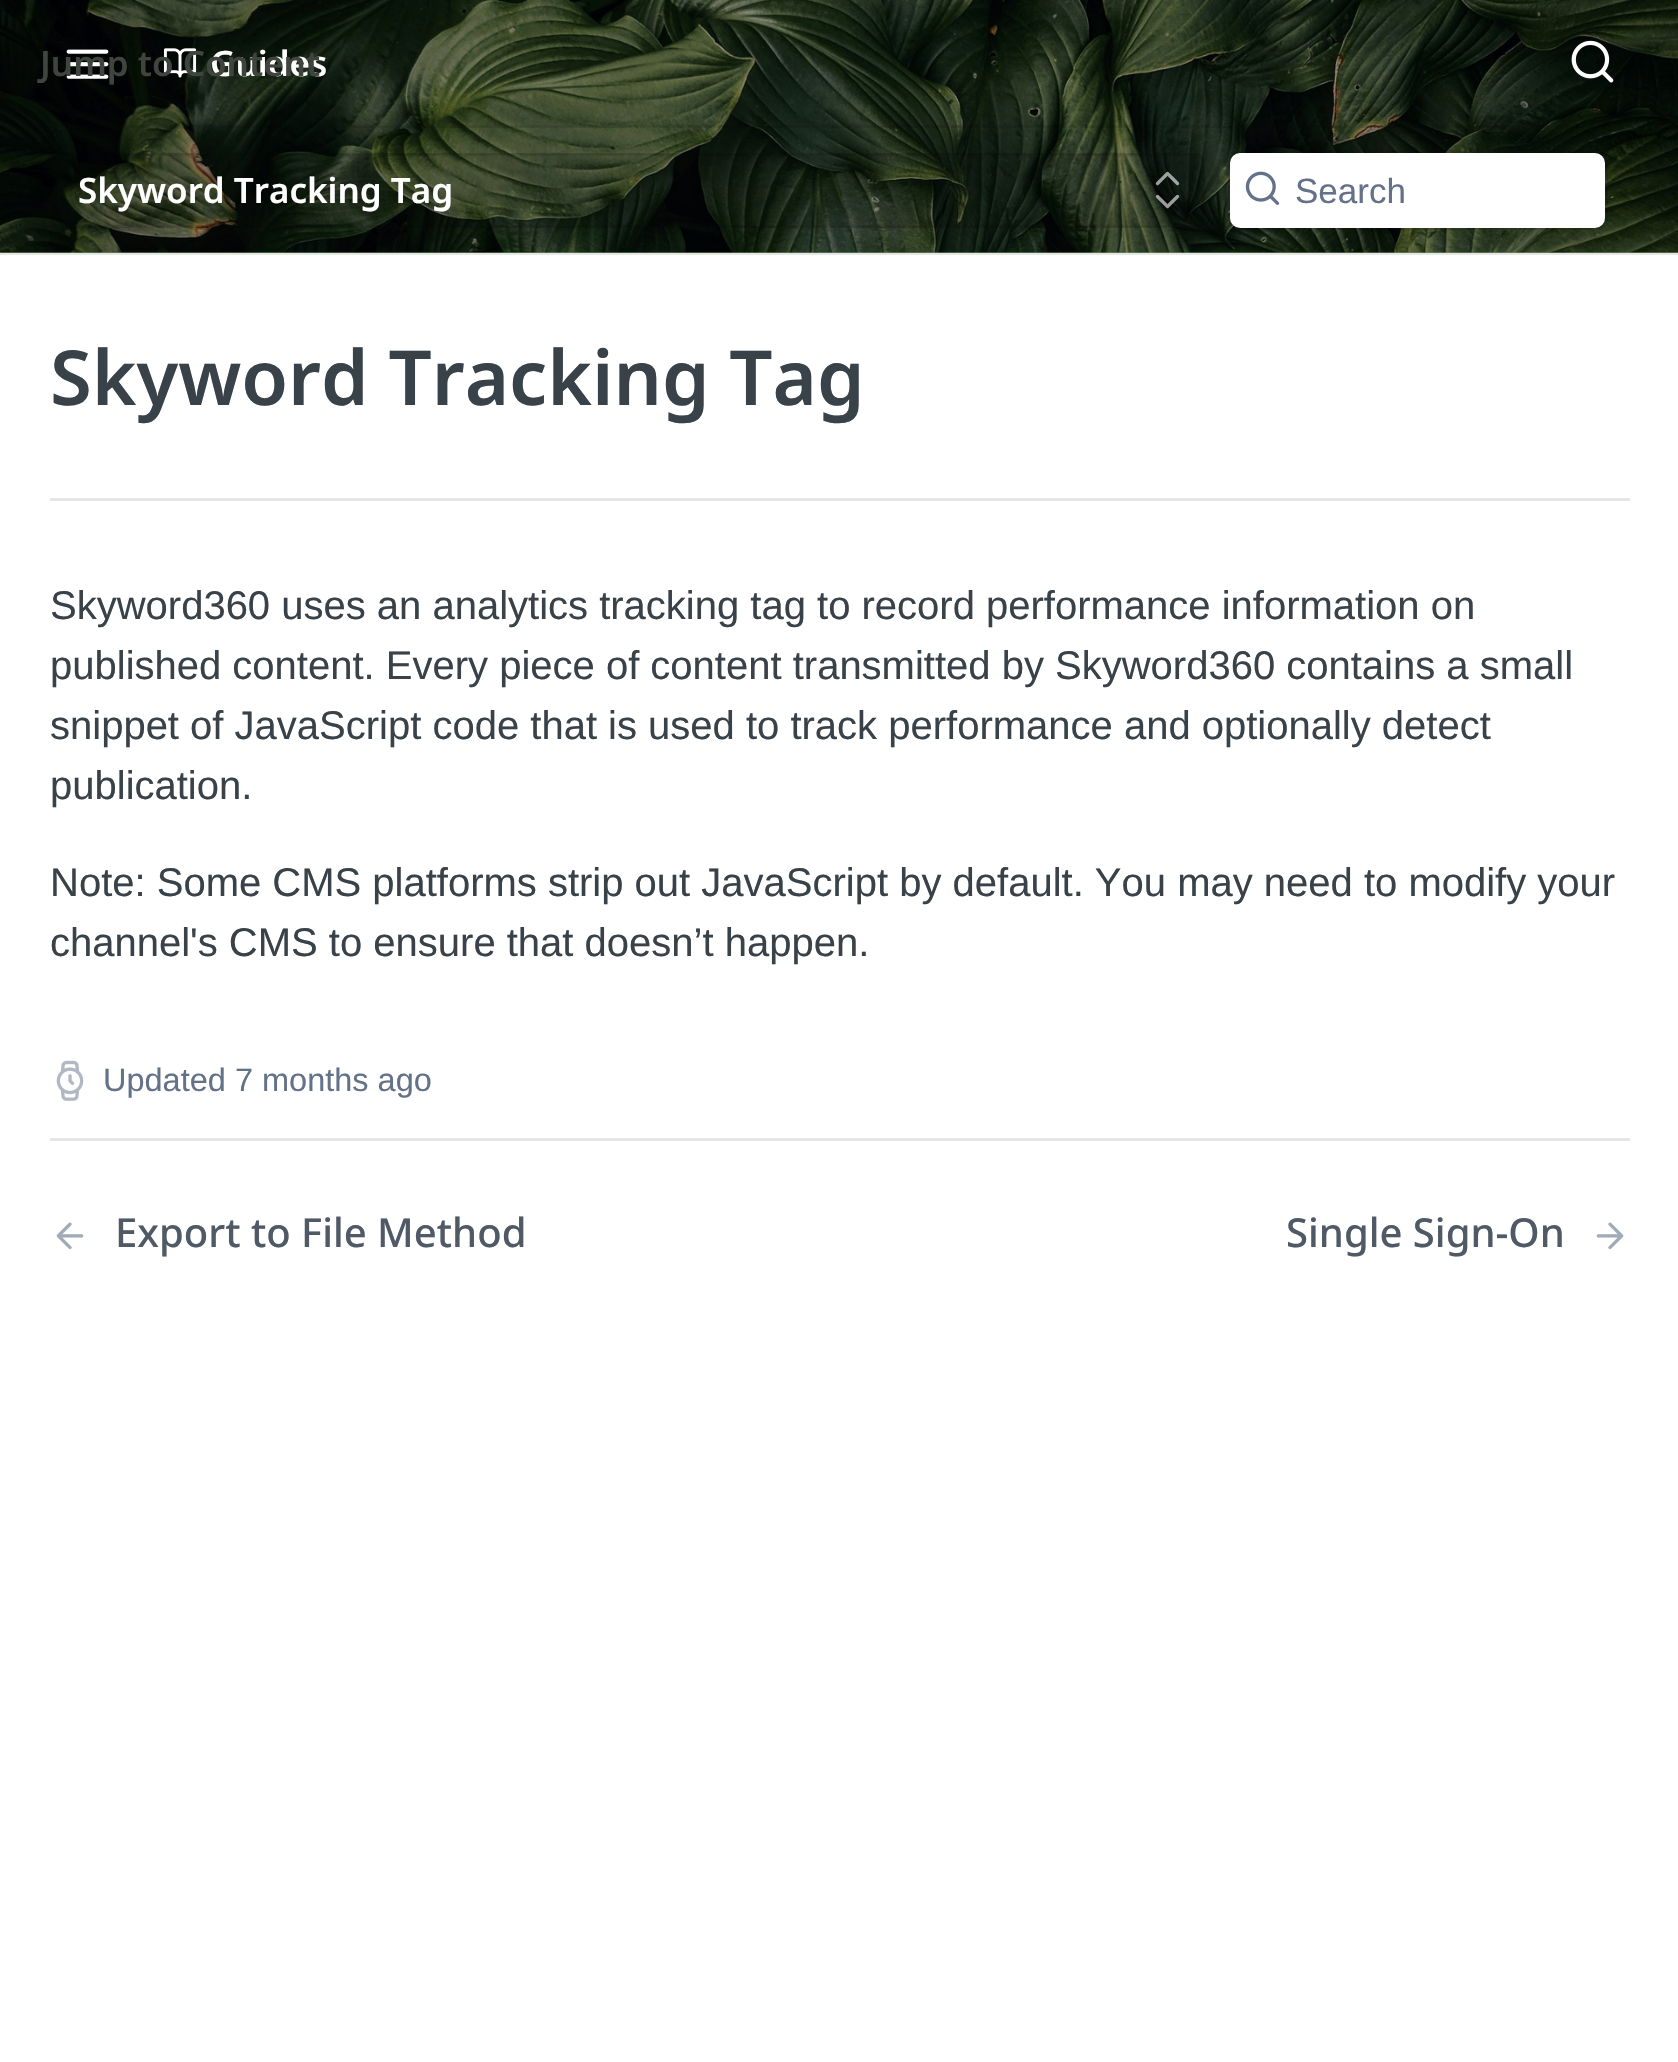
#include "include/core/SkBlurTypes.h"
#include "include/core/SkCanvas.h"
#include "include/core/SkData.h"
#include "include/core/SkFont.h"
#include "include/core/SkFontMgr.h"
#include "include/core/SkImage.h"
#include "include/core/SkMaskFilter.h"
#include "include/core/SkPaint.h"
#include "include/core/SkPathBuilder.h"
#include "include/core/SkTextBlob.h"
#include "include/effects/SkDashPathEffect.h"
#include "include/effects/SkGradientShader.h"
#include "include/utils/SkParsePath.h"

extern sk_sp<SkFontMgr> fontMgr;

void draw(SkCanvas* canvas) {
    SkPaint p;
    p.setAntiAlias(true);
    auto font = [&](const char* family, int weight, float size, bool italic = false) {
        SkFontStyle style(weight, SkFontStyle::kNormal_Width,
            italic ? SkFontStyle::kItalic_Slant : SkFontStyle::kUpright_Slant);
        SkFont result(fontMgr->matchFamilyStyle(family, style), size);
        result.setSubpixel(true);
        return result;
    };
    auto drawPhoto = [&](const char* path, float l, float t, float r, float b) {
        auto image = SkImages::DeferredFromEncodedData(SkData::MakeFromFileName(path));
        canvas->drawImageRect(image, SkRect::MakeLTRB(l, t, r, b), SkSamplingOptions());
    };
    canvas->clear(0xFFFFFFFF);
    p.setColor(0xFFE6E6E6);
    canvas->drawRect(SkRect::MakeLTRB(0, 253, 1678, 255), p);
    p.setColor(0xFF6DA062);
    canvas->drawRect(SkRect::MakeLTRB(0, 252, 1678, 253), p);
    drawPhoto("media/1.png", 0, 0, 1678, 253);
    p.setColor(0x1A000000);
    canvas->drawRect(SkRect::MakeLTRB(124, 125, 1642, 128), p);
    drawPhoto("media/2.png", 66, 49, 109, 79);
    drawPhoto("media/3.png", 163, 48, 197, 78);
    auto font1 = font("Noto Sans", 600, 35);
    p.setColor(0xFFFFFFFF);
    canvas->drawString("Guides", 210, 76, font1, p);
    drawPhoto("media/4.png", 1571, 40, 1614, 83);
    p.setColor(0xFF3F443F);
    canvas->drawString("Jump to Content", 40, 76, font1, p);
    p.setColor(0x1A000000);
    canvas->drawRoundRect(SkRect::MakeLTRB(50, 153, 1205, 228), 10, 10, p);
    p.setStyle(SkPaint::kStroke_Style);
    p.setStrokeWidth(3);
    canvas->drawRoundRect(SkRect::MakeLTRB(51.5f, 154.5f, 1203.5f, 226.5f), 8.5f, 8.5f, p);
    p.setStyle(SkPaint::kFill_Style);
    p.setColor(0xFFFFFFFF);
    canvas->drawString("Skyword Tracking Tag", 78, 203, font1, p);
    p.setStyle(SkPaint::kStroke_Style);
    p.setStrokeWidth(3.3f);
    p.setStrokeCap(SkPaint::kRound_Cap);
    p.setStrokeJoin(SkPaint::kRound_Join);
    p.setColor(0x99FFFFFF);
    canvas->drawPath(SkPathBuilder().moveTo(1157.5f, 196.5f).lineTo(1167.5f, 206.5f).lineTo(1177.5f, 196.5f).moveTo(1177.5f, 183.5f).lineTo(1167.5f, 173.5f).lineTo(1157.5f, 183.5f).detach(), p);
    p.setStrokeWidth(3);
    p.setStrokeCap(SkPaint::kButt_Cap);
    p.setStrokeJoin(SkPaint::kMiter_Join);
    p.setColor(0x1A000000);
    canvas->drawRoundRect(SkRect::MakeLTRB(1229.5f, 151.5f, 1606.5f, 228.5f), 11.5f, 11.5f, p);
    p.setStyle(SkPaint::kFill_Style);
    p.setColor(0xFFFFFFFF);
    canvas->drawRoundRect(SkRect::MakeLTRB(1230, 153, 1605, 228), 10, 10, p);
    drawPhoto("media/5.png", 1245, 171, 1280, 205);
    auto font2 = font("Liberation Sans", 400, 35);
    p.setColor(0xFF637288);
    canvas->drawString("Search", 1295, 203, font2, p);
    p.setColor(0xFFE6E6E6);
    canvas->drawRect(SkRect::MakeLTRB(50, 498, 1630, 501), p);
    auto font3 = font("Noto Sans", 600, 76);
    p.setColor(0xFF384248);
    canvas->drawString("Skyword Tracking Tag", 50, 405, font3, p);
    auto font4 = font("Liberation Sans", 400, 40);
    {
        const struct { const char* s; float x, y; } items[] = {
            {"Skyword360 uses an analytics tracking tag to record performance information on", 50, 619},
            {"published content. Every piece of content transmitted by Skyword360 contains a small", 50, 679},
            {"snippet of JavaScript code that is used to track performance and optionally detect", 50, 739},
            {"publication.", 50, 799},
            {"Note: Some CMS platforms strip out JavaScript by default. You may need to modify your", 50, 896},
            {"channel's CMS to ensure that doesn’t happen.", 50, 956},
        };
        for (auto [s, x, y] : items) {
            canvas->drawString(s, x, y, font4, p);
        }
    }
    drawPhoto("media/6.png", 56, 1060, 84, 1101);
    auto font5 = font("Liberation Sans", 400, 32.5f);
    p.setColor(0xFF637288);
    canvas->drawString("Updated 7 months ago", 103, 1091, font5, p);
    p.setColor(0xFFE6E6E6);
    canvas->drawRect(SkRect::MakeLTRB(50, 1138, 1630, 1141), p);
    drawPhoto("media/7.png", 56, 1222, 84, 1250);
    auto font6 = font("Noto Sans", 500, 40);
    p.setColor(0xFF4F5A66);
    canvas->drawString("Export to File Method", 115, 1247, font6, p);
    canvas->drawString("Single Sign-On", 1286, 1247, font6, p);
    drawPhoto("media/8.png", 1596, 1222, 1624, 1250);
}
